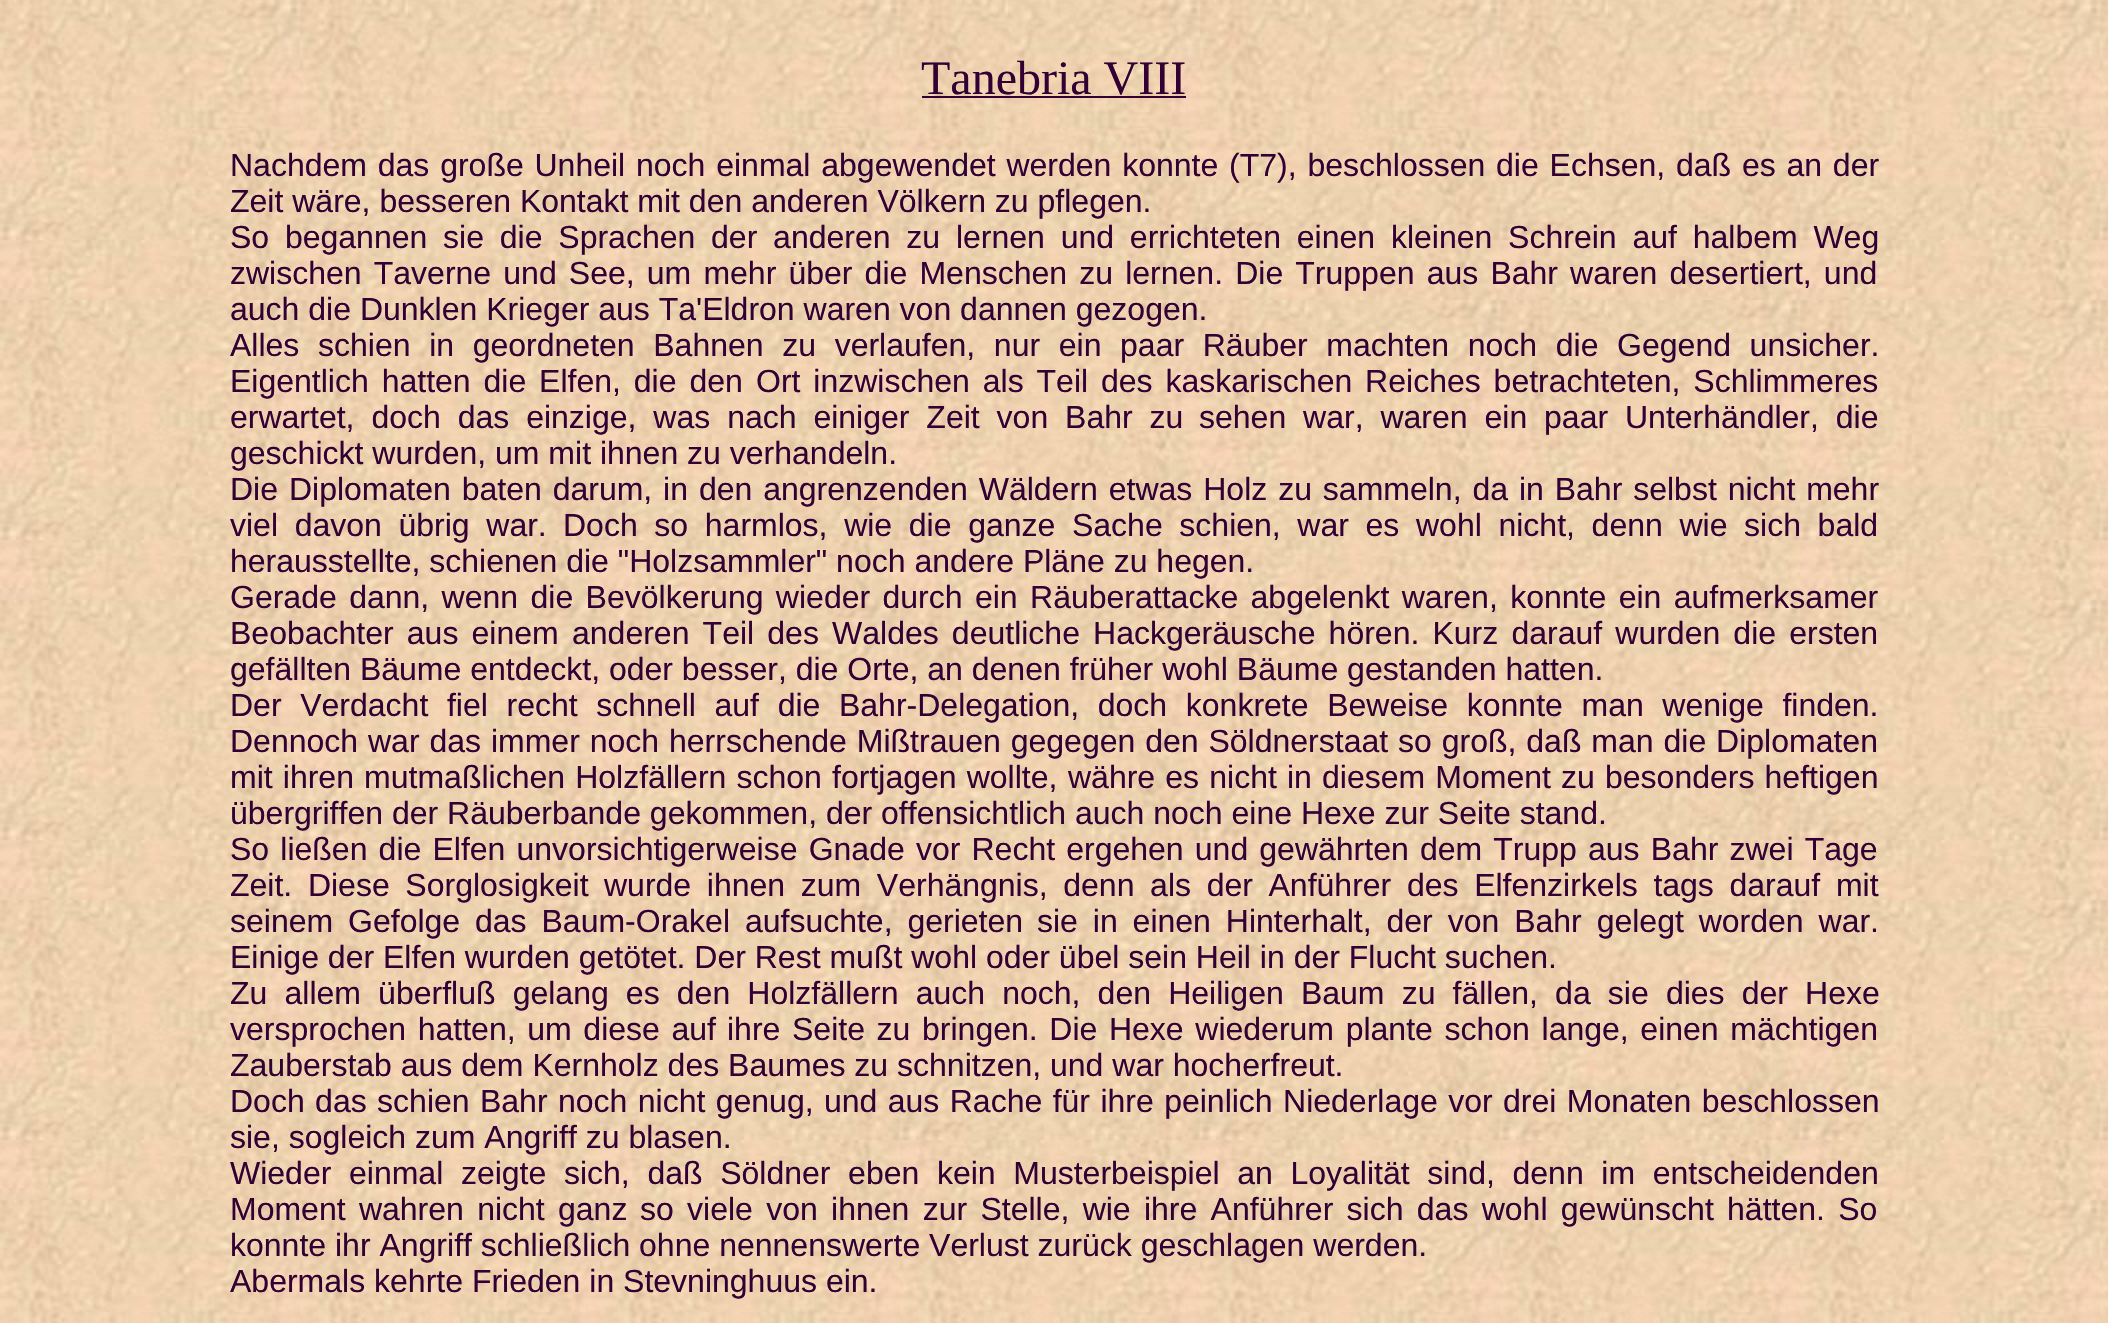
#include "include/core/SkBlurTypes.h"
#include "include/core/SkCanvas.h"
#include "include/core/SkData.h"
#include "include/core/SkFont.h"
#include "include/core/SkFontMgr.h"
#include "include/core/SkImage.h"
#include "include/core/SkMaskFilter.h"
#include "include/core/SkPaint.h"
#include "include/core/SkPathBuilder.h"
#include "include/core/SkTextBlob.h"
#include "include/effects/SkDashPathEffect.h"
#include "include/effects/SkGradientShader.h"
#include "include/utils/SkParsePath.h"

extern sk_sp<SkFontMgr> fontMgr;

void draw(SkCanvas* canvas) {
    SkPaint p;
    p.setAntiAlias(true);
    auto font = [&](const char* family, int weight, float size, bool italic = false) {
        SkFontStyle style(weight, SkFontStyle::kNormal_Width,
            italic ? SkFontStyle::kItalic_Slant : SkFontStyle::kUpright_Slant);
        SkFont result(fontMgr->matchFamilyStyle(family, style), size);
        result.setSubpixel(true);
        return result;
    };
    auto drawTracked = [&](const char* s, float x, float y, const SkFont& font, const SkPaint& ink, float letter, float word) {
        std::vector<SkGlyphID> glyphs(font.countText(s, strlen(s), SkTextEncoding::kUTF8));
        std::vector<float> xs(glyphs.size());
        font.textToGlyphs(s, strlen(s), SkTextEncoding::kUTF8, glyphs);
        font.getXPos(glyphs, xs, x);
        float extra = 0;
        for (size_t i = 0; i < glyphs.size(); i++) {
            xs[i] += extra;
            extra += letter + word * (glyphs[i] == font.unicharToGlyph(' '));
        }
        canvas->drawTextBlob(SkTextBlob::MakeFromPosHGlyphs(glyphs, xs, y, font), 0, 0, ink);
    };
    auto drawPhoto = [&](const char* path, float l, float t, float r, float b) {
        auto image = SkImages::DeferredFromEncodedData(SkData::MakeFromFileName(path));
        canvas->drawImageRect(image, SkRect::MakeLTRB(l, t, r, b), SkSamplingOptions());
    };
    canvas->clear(0xFFFFFFFF);
    drawPhoto("media/1.png", 0, 0, 2108, 1323);
    auto font1 = font("Liberation Serif", 400, 48);
    p.setColor(0xFF330033);
    canvas->drawString("Tanebria VIII", 921, 94, font1, p);
    canvas->drawRect(SkRect::MakeLTRB(922, 96, 1186, 98), p);
    auto font2 = font("Liberation Sans", 400, 32);
    drawTracked("Nachdem das große Unheil noch einmal abgewendet werden konnte (T7), beschlossen die Echsen, daß es an der", 230, 176, font2, p, 0, 1.9f);
    canvas->drawString("Zeit wäre, besseren Kontakt mit den anderen Völkern zu pflegen.", 230, 212, font2, p);
    drawTracked("So begannen sie die Sprachen der anderen zu lernen und errichteten einen kleinen Schrein auf halbem Weg", 230, 248, font2, p, 0, 6.9f);
    drawTracked("zwischen Taverne und See, um mehr über die Menschen zu lernen. Die Truppen aus Bahr waren desertiert, und", 230, 284, font2, p, 0, 3.25f);
    canvas->drawString("auch die Dunklen Krieger aus Ta'Eldron waren von dannen gezogen.", 230, 320, font2, p);
    drawTracked("Alles schien in geordneten Bahnen zu verlaufen, nur ein paar Räuber machten noch die Gegend unsicher.", 230, 356, font2, p, 0, 9.75f);
    drawTracked("Eigentlich hatten die Elfen, die den", 230, 392, font2, p, 0, 4);
    drawTracked("Ort inzwischen als Teil des kaskarischen Reiches betrachteten, Schlimmeres", 756, 392, font2, p, 0, 4);
    drawTracked("erwartet, doch das einzige, was nach einiger Zeit von Bahr zu", 230, 428, font2, p, 0, 8);
    drawTracked("sehen war, waren ein paar Unterhändler, die", 1199, 428, font2, p, 0, 8);
    canvas->drawString("geschickt wurden, um mit ihnen zu verhandeln.", 230, 464, font2, p);
    drawTracked("Die Diplomaten baten darum, in den angrenzenden Wäldern etwas Holz zu sammeln, da in Bahr selbst nicht mehr", 230, 500, font2, p, 0, 2);
    drawTracked("viel davon übrig war.", 230, 536, font2, p, 0, 7.75f);
    drawTracked("Doch so harmlos, wie die ganze Sache schien, war es wohl nicht, denn wie sich bald", 563, 536, font2, p, 0, 7.75f);
    canvas->drawString("herausstellte, schienen die \"Holzsammler\" noch andere Pläne zu hegen.", 230, 572, font2, p);
    drawTracked("Gerade dann, wenn die Bevölkerung wieder durch ein Räuberattacke abgelenkt waren, konnte ein aufmerksamer", 230, 608, font2, p, 0, 3.5f);
    drawTracked("Beobachter aus einem", 230, 644, font2, p, 0, 4.25f);
    drawTracked("anderen Teil des Waldes deutliche Hackgeräusche hören. Kurz darauf wurden die ersten", 572, 644, font2, p, 0, 4.25f);
    canvas->drawString("gefällten Bäume entdeckt, oder besser, die Orte, an denen früher wohl Bäume gestanden hatten.", 230, 680, font2, p);
    drawTracked("Der Verdacht fiel recht schnell auf die Bahr-Delegation, doch konkrete Beweise konnte man wenige finden.", 230, 716, font2, p, 0, 9.75f);
    drawTracked("Dennoch war das immer noch", 230, 752, font2, p, 0, 1);
    drawTracked("herrschende Mißtrauen gegegen den Söldnerstaat so groß, daß man die Diplomaten", 669, 752, font2, p, 0, 1);
    drawTracked("mit ihren mutmaßlichen Holzfällern schon fortjagen wollte,", 230, 788, font2, p, 0, 1.25f);
    drawTracked("währe es nicht in diesem Moment zu besonders heftigen", 1068, 788, font2, p, 0, 1.25f);
    canvas->drawString("übergriffen der Räuberbande gekommen, der offensichtlich auch noch eine Hexe zur Seite stand.", 230, 824, font2, p);
    drawTracked("So ließen die Elfen unvorsichtigerweise Gnade vor Recht ergehen und gewährten dem Trupp aus Bahr zwei Tage", 230, 860, font2, p, 0, 2.25f);
    drawTracked("Zeit. Diese Sorglosigkeit", 230, 896, font2, p, 0, 6.75f);
    drawTracked("wurde ihnen zum Verhängnis, denn als der Anführer des Elfenzirkels tags darauf mit", 604, 896, font2, p, 0, 6.75f);
    drawTracked("seinem Gefolge das Baum-Orakel aufsuchte, gerieten", 230, 932, font2, p, 0, 6);
    drawTracked("sie in einen Hinterhalt, der von Bahr gelegt worden war.", 1037, 932, font2, p, 0, 6);
    canvas->drawString("Einige der Elfen wurden getötet. Der Rest mußt wohl oder übel sein Heil in der Flucht suchen.", 230, 968, font2, p);
    drawTracked("Zu allem überfluß gelang es den Holzfällern auch noch, den Heiligen Baum zu fällen, da sie dies der Hexe", 230, 1004, font2, p, 0, 8.25f);
    drawTracked("versprochen hatten, um diese auf", 230, 1040, font2, p, 0, 2.75f);
    drawTracked("ihre Seite zu bringen. Die Hexe wiederum plante schon lange, einen mächtigen", 727, 1040, font2, p, 0, 2.75f);
    canvas->drawString("Zauberstab aus dem Kernholz des Baumes zu schnitzen, und war hocherfreut.", 230, 1076, font2, p);
    drawTracked("Doch das schien Bahr noch nicht genug, und aus Rache für ihre peinlich Niederlage vor drei Monaten beschlossen", 230, 1112, font2, p, 0, 1.5f);
    canvas->drawString("sie, sogleich zum Angriff zu blasen.", 230, 1148, font2, p);
    drawTracked("Wieder einmal zeigte sich, daß Söldner eben kein Musterbeispiel an Loyalität sind, denn im entscheidenden", 230, 1184, font2, p, 0, 8.75f);
    drawTracked("Moment wahren nicht ganz", 230, 1220, font2, p, 0, 4.4f);
    drawTracked("so viele von ihnen zur Stelle, wie ihre Anführer sich das wohl gewünscht hätten. So", 640, 1220, font2, p, 0, 4.4f);
    canvas->drawString("konnte ihr Angriff schließlich ohne nennenswerte Verlust zurück geschlagen werden.", 230, 1256, font2, p);
    canvas->drawString("Abermals kehrte Frieden in Stevninghuus ein.", 230, 1292, font2, p);
}
